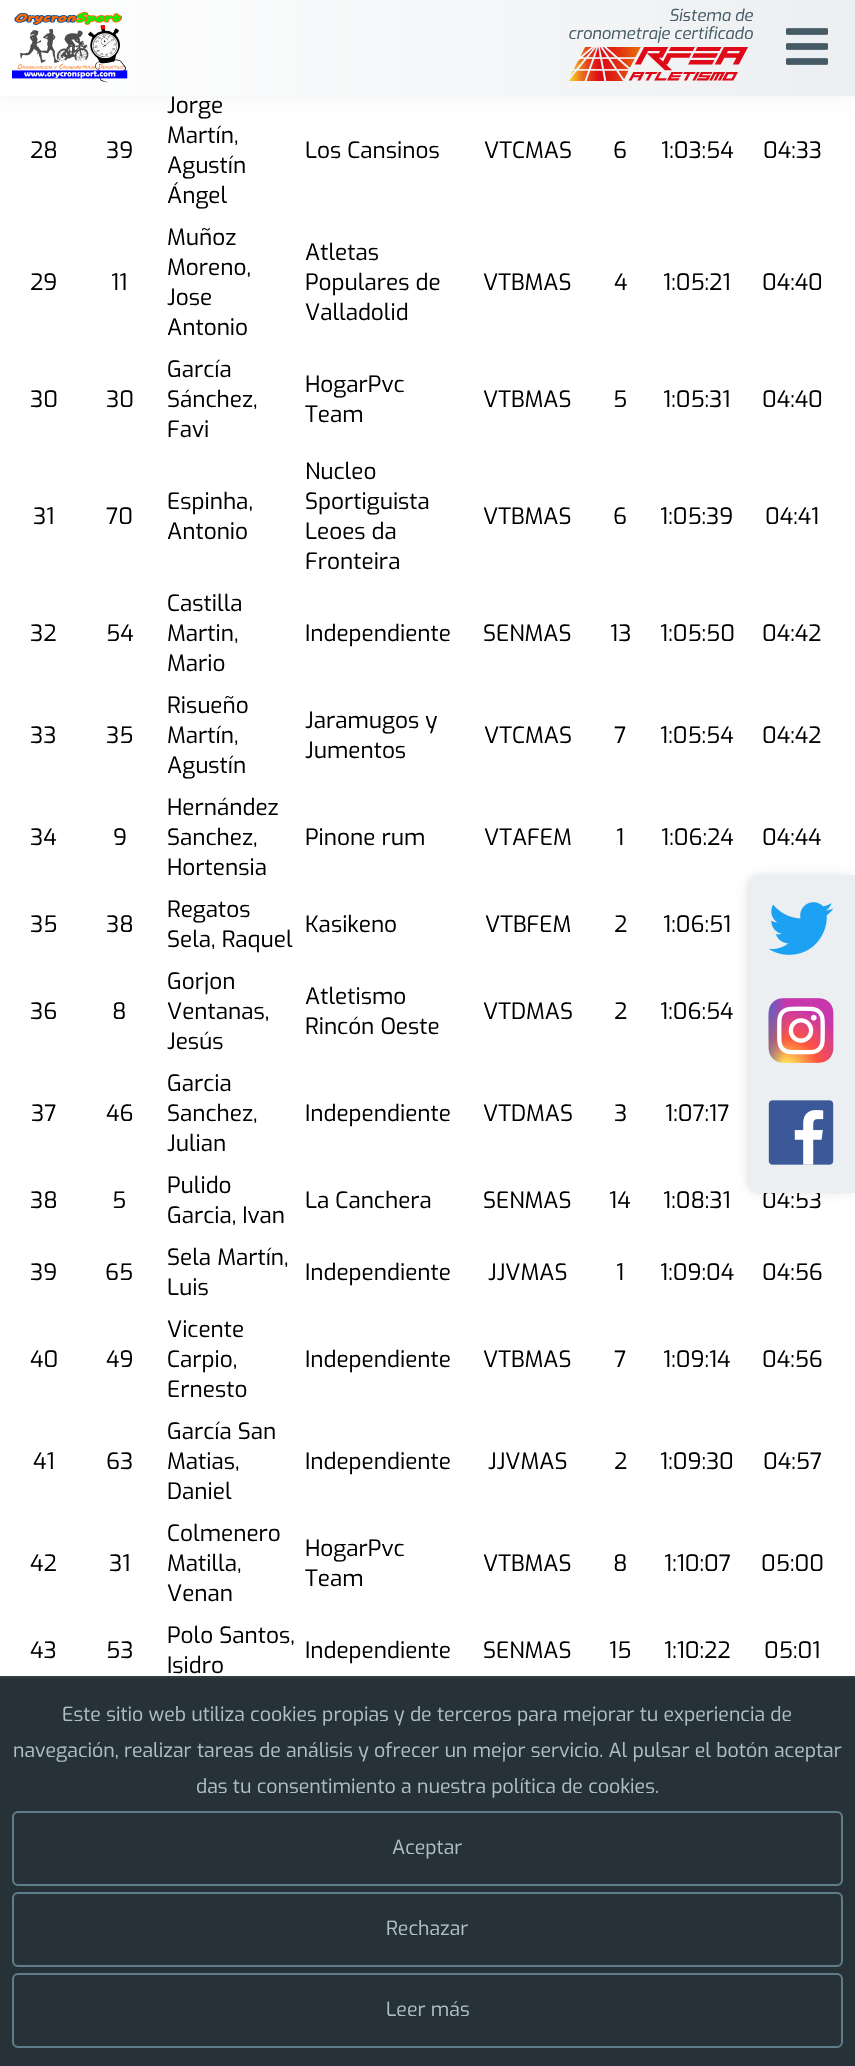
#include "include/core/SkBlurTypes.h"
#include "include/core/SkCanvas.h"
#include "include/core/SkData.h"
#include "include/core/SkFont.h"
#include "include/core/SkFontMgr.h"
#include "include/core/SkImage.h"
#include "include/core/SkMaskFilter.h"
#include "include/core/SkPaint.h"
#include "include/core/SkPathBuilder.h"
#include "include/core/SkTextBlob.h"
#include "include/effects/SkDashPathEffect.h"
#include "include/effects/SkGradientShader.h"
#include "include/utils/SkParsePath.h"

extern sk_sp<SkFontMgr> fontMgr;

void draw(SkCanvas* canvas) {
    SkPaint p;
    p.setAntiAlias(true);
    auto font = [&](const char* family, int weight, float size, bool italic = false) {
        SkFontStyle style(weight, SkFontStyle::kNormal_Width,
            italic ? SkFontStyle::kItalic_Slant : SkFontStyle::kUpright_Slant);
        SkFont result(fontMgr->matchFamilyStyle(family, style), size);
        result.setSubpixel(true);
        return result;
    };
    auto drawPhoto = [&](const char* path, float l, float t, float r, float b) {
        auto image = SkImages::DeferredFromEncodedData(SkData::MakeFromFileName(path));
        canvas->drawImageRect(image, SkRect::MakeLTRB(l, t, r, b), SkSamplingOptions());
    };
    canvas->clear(0xFFFFFFFF);
    p.setColor(0x0D000000);
    p.setMaskFilter(SkMaskFilter::MakeBlur(kNormal_SkBlurStyle, 7.5f));
    canvas->drawRect(SkRect::MakeLTRB(0, 0, 855, 96), p);
    p.setMaskFilter(nullptr);
    {
        const SkColor colors[] = {0xFFFFFFFF, 0xFFECEFF1};
        const float stops[] = {0, 1};
        const SkPoint ends[] = {{0, 48}, {855, 48}};
        p.setShader(SkGradientShader::MakeLinear(ends, colors, stops, 2, SkTileMode::kClamp));
        p.setAlpha(255);
    }
    canvas->drawRect(SkRect::MakeLTRB(0, 0, 855, 96), p);
    drawPhoto("media/1.png", 12, 12, 128, 83);
    auto font1 = font("Exo", 400, 16.5f, true);
    p.setShader(nullptr);
    p.setColor(0xFF455A64);
    canvas->drawString("Sistema de", 669, 21, font1, p);
    canvas->drawString("cronometraje certificado", 568, 39, font1, p);
    drawPhoto("media/2.png", 569, 47, 748, 81);
    drawPhoto("media/3.png", 786, 28, 828, 65);
    auto font2 = font("Exo", 400, 22.5f);
    p.setColor(0xFF000000);
    {
        const struct { const char* s; float x, y; } items[] = {
            {"28", 30, 158},
            {"39", 106, 158},
            {"Jorge", 167, 113},
            {"Martín,", 167, 143},
            {"Agustín", 167, 173},
            {"Ángel", 167, 203},
            {"Los Cansinos", 305, 158},
            {"VTCMAS", 484, 158},
            {"6", 613, 158},
            {"1:03:54", 661, 158},
            {"04:33", 763, 158},
            {"29", 30, 290},
            {"11", 111, 290},
            {"Muñoz", 167, 245},
            {"Moreno,", 167, 275},
            {"Jose", 167, 305},
            {"Antonio", 167, 335},
            {"Atletas", 305, 260},
            {"Populares de", 305, 290},
            {"Valladolid", 305, 320},
            {"VTBMAS", 483, 290},
            {"4", 614, 290},
            {"1:05:21", 663, 290},
            {"04:40", 762, 290},
            {"30", 30, 407},
            {"30", 106, 407},
            {"García", 167, 377},
            {"Sánchez,", 167, 407},
            {"Favi", 167, 437},
            {"HogarPvc", 305, 392},
            {"Team", 305, 422},
            {"VTBMAS", 483, 407},
            {"5", 613, 407},
            {"1:05:31", 663, 407},
            {"04:40", 762, 407},
            {"31", 33, 524},
            {"70", 106, 524},
            {"Espinha,", 167, 509},
            {"Antonio", 167, 539},
            {"Nucleo", 305, 479},
            {"Sportiguista", 305, 509},
            {"Leoes da", 305, 539},
            {"Fronteira", 305, 569},
            {"VTBMAS", 483, 524},
            {"6", 613, 524},
            {"1:05:39", 660, 524},
            {"04:41", 765, 524},
            {"32", 30, 641},
            {"54", 106, 641},
            {"Castilla", 167, 611},
            {"Martin,", 167, 641},
            {"Mario", 167, 671},
            {"Independiente", 305, 641},
            {"SENMAS", 483, 641},
            {"13", 610, 641},
            {"1:05:50", 660, 641},
            {"04:42", 762, 641},
            {"33", 30, 743},
            {"35", 106, 743},
            {"Risueño", 167, 713},
            {"Martín,", 167, 743},
            {"Agustín", 167, 773},
            {"Jaramugos y", 305, 728},
            {"Jumentos", 305, 758},
            {"VTCMAS", 484, 743},
            {"7", 614, 743},
            {"1:05:54", 660, 743},
            {"04:42", 762, 743},
            {"34", 30, 845},
            {"9", 113, 845},
            {"Hernández", 167, 815},
            {"Sanchez,", 167, 845},
            {"Hortensia", 167, 875},
            {"Pinone rum", 305, 845},
            {"VTAFEM", 484, 845},
            {"1", 616, 845},
            {"1:06:24", 661, 845},
            {"04:44", 762, 845},
            {"35", 30, 932},
            {"38", 106, 932},
            {"Regatos", 167, 917},
            {"Sela, Raquel", 167, 947},
            {"Kasikeno", 305, 932},
            {"VTBFEM", 485, 932},
            {"2", 614, 932},
            {"1:06:51", 663, 932},
            {"36", 30, 1019},
            {"8", 112, 1019},
            {"Gorjon", 167, 989},
            {"Ventanas,", 167, 1019},
            {"Jesús", 167, 1049},
            {"Atletismo", 305, 1004},
            {"Rincón Oeste", 305, 1034},
            {"VTDMAS", 483, 1019},
            {"2", 614, 1019},
            {"1:06:54", 660, 1019},
            {"37", 31, 1121},
            {"46", 106, 1121},
            {"Garcia", 167, 1091},
            {"Sanchez,", 167, 1121},
            {"Julian", 167, 1151},
            {"Independiente", 305, 1121},
            {"VTDMAS", 483, 1121},
            {"3", 614, 1121},
            {"1:07:17", 665, 1121},
            {"38", 30, 1208},
            {"5", 112, 1208},
            {"Pulido", 167, 1193},
            {"Garcia, Ivan", 167, 1223},
            {"La Canchera", 305, 1208},
            {"SENMAS", 483, 1208},
            {"14", 609, 1208},
            {"1:08:31", 663, 1208},
            {"04:53", 762, 1208},
            {"39", 30, 1280},
            {"65", 105, 1280},
            {"Sela Martín,", 167, 1265},
            {"Luis", 167, 1295},
            {"Independiente", 305, 1280},
            {"JJVMAS", 488, 1280},
            {"1", 616, 1280},
            {"1:09:04", 660, 1280},
            {"04:56", 762, 1280},
            {"40", 30, 1367},
            {"49", 106, 1367},
            {"Vicente", 167, 1337},
            {"Carpio,", 167, 1367},
            {"Ernesto", 167, 1397},
            {"Independiente", 305, 1367},
            {"VTBMAS", 483, 1367},
            {"7", 614, 1367},
            {"1:09:14", 663, 1367},
            {"04:56", 762, 1367},
            {"41", 33, 1469},
            {"63", 106, 1469},
            {"García San", 167, 1439},
            {"Matias,", 167, 1469},
            {"Daniel", 167, 1499},
            {"Independiente", 305, 1469},
            {"JJVMAS", 488, 1469},
            {"2", 614, 1469},
            {"1:09:30", 660, 1469},
            {"04:57", 763, 1469},
            {"42", 30, 1571},
            {"31", 109, 1571},
            {"Colmenero", 167, 1541},
            {"Matilla,", 167, 1571},
            {"Venan", 167, 1601},
            {"HogarPvc", 305, 1556},
            {"Team", 305, 1586},
            {"VTBMAS", 483, 1571},
            {"8", 613, 1571},
            {"1:10:07", 664, 1571},
            {"05:00", 761, 1571},
            {"43", 30, 1658},
            {"53", 106, 1658},
            {"Polo Santos,", 167, 1643},
            {"Isidro", 167, 1673},
            {"Independiente", 305, 1658},
            {"SENMAS", 483, 1658},
            {"15", 609, 1658},
            {"1:10:22", 664, 1658},
            {"05:01", 764, 1658},
        };
        for (auto [s, x, y] : items) {
            canvas->drawString(s, x, y, font2, p);
        }
    }
    p.setColor(0x1A000000);
    p.setMaskFilter(SkMaskFilter::MakeBlur(kNormal_SkBlurStyle, 5));
    canvas->drawRoundRect(SkRect::MakeLTRB(747, 875, 855, 1193), 12, 12, p);
    p.setMaskFilter(nullptr);
    p.setColor(0xFFECEFF1);
    canvas->drawPath(SkPathBuilder().moveTo(759, 875).lineTo(855, 875).lineTo(855, 1193).lineTo(759, 1193).cubicTo(752.5f, 1193, 747, 1187.5f, 747, 1181).lineTo(747, 887).cubicTo(747, 880.5f, 752.5f, 875, 759, 875).close().detach(), p);
    drawPhoto("media/4.png", 768, 902, 834, 955);
    drawPhoto("media/5.png", 768, 998, 834, 1063);
    drawPhoto("media/6.png", 768, 1100, 834, 1165);
    p.setColor(0xFF263238);
    canvas->drawRect(SkRect::MakeLTRB(0, 1678, 855, 2066), p);
    p.setColor(0xFF313C42);
    canvas->drawRect(SkRect::MakeLTRB(0, 1676, 855, 1678), p);
    auto font3 = font("Exo", 400, 19.5f);
    p.setColor(0xFFB0BEC5);
    {
        const struct { const char* s; float x, y; } items[] = {
            {"Este sitio web utiliza cookies propias y de terceros para mejorar tu experiencia de", 62, 1721},
            {"navegación, realizar tareas de análisis y ofrecer un mejor servicio. Al pulsar el botón aceptar", 13, 1757},
            {"das tu consentimiento a nuestra política de cookies.", 196, 1793},
        };
        for (auto [s, x, y] : items) {
            canvas->drawString(s, x, y, font3, p);
        }
    }
    p.setStyle(SkPaint::kStroke_Style);
    p.setStrokeWidth(2);
    p.setColor(0xFF607D8B);
    canvas->drawRoundRect(SkRect::MakeLTRB(13, 1812, 842, 1885), 5, 5, p);
    p.setStyle(SkPaint::kFill_Style);
    p.setColor(0xFFB0BEC5);
    canvas->drawString("Aceptar", 392, 1854, font3, p);
    p.setStyle(SkPaint::kStroke_Style);
    p.setColor(0xFF607D8B);
    canvas->drawRoundRect(SkRect::MakeLTRB(13, 1893, 842, 1966), 5, 5, p);
    p.setStyle(SkPaint::kFill_Style);
    p.setColor(0xFFB0BEC5);
    canvas->drawString("Rechazar", 386, 1935, font3, p);
    p.setStyle(SkPaint::kStroke_Style);
    p.setColor(0xFF607D8B);
    canvas->drawRoundRect(SkRect::MakeLTRB(13, 1974, 842, 2047), 5, 5, p);
    p.setStyle(SkPaint::kFill_Style);
    p.setColor(0xFFB0BEC5);
    canvas->drawString("Leer más", 386, 2016, font3, p);
}
